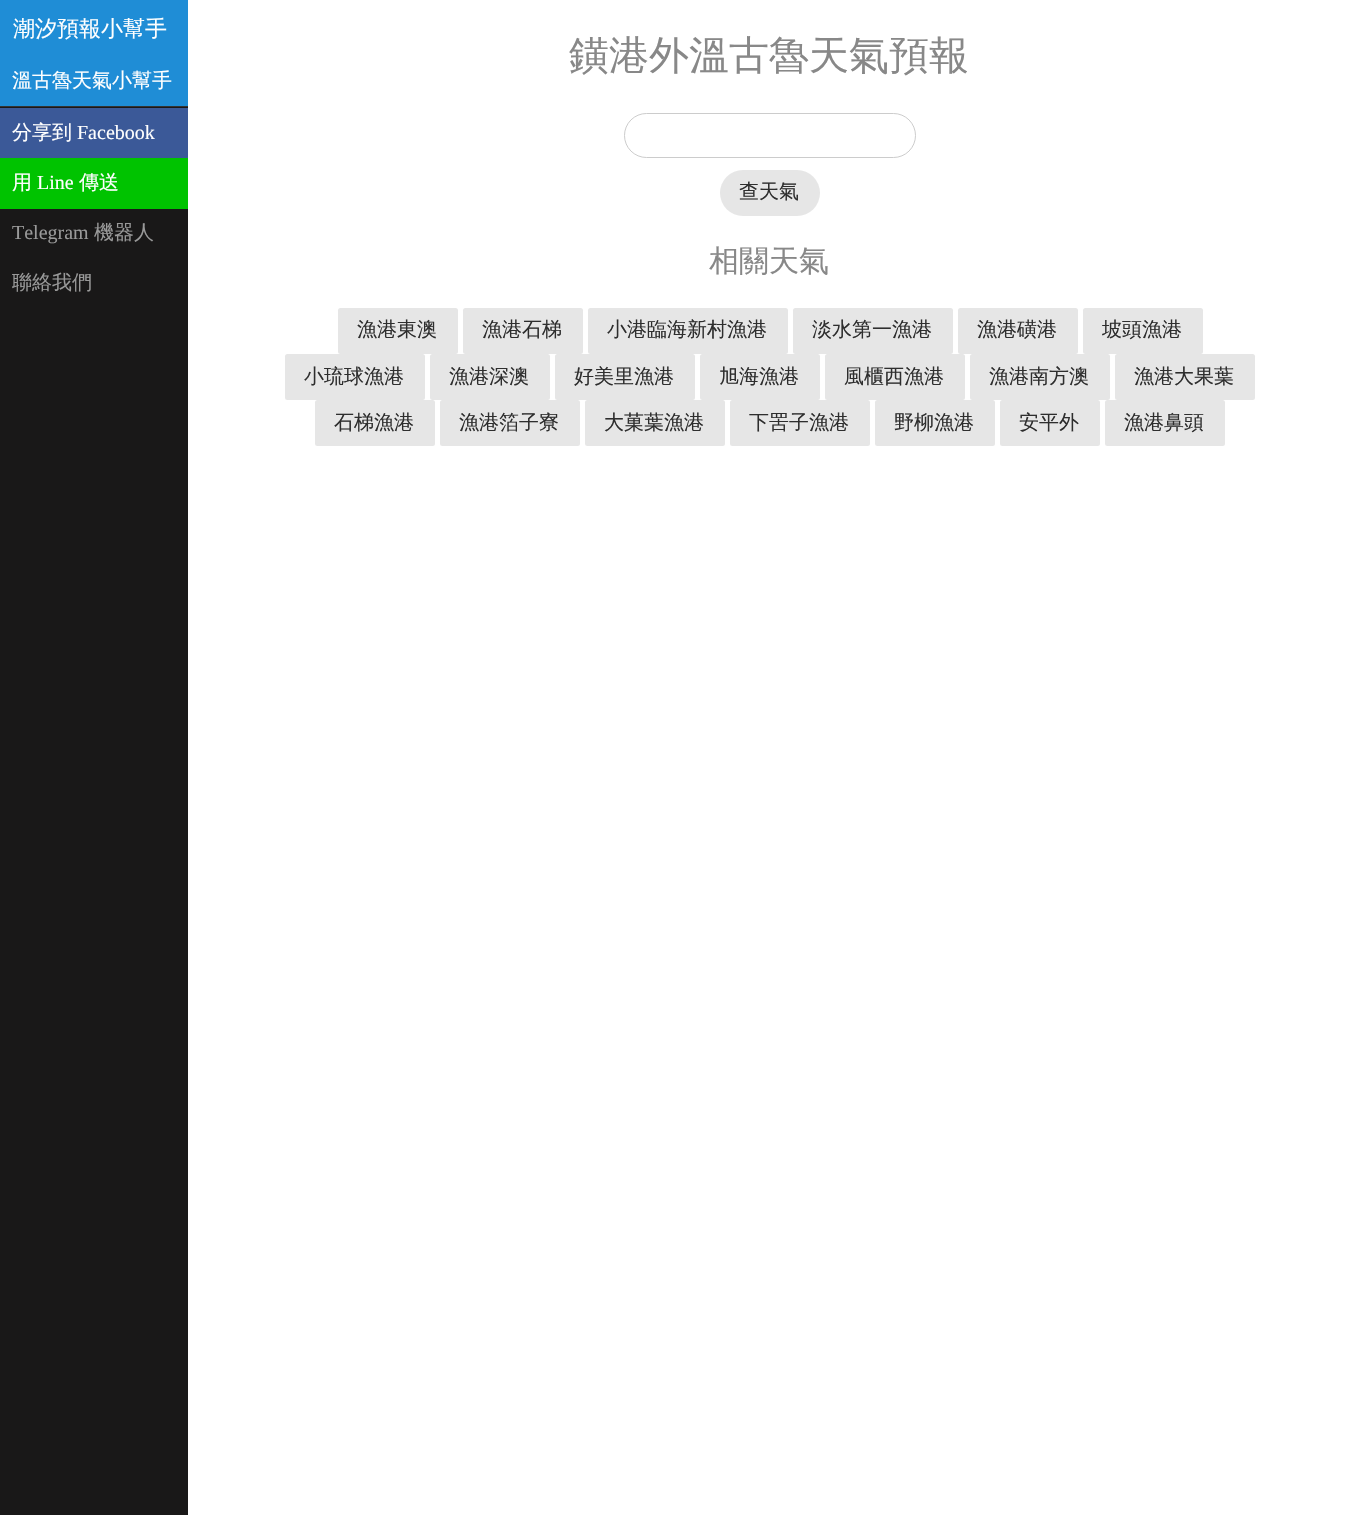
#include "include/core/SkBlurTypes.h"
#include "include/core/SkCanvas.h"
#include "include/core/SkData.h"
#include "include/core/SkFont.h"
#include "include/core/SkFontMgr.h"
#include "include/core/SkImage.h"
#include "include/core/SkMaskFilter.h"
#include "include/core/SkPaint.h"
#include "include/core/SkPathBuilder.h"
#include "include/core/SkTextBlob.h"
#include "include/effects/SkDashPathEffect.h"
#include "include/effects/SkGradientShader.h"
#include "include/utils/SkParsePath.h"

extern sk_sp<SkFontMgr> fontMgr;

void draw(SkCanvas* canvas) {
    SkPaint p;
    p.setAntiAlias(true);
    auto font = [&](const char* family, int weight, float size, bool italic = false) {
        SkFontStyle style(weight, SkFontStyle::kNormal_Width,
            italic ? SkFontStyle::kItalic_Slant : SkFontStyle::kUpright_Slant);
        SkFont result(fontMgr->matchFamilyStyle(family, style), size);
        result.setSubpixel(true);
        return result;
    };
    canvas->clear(0xFFFFFFFF);
    p.setColor(0xFF191818);
    canvas->drawRect(SkRect::MakeLTRB(0, 107, 188, 1515), p);
    p.setColor(0xFF1F8DD6);
    canvas->drawRect(SkRect::MakeLTRB(0, 0, 188, 106), p);
    auto font1 = font("WenQuanYi Zen Hei", 500, 22);
    p.setColor(0xFFFFFFFF);
    canvas->drawString("潮汐預報小幫手", 13, 36, font1, p);
    auto font2 = font("WenQuanYi Zen Hei", 500, 20);
    canvas->drawString("溫古魯天氣小幫手", 12, 87, font2, p);
    p.setColor(0xFF333333);
    canvas->drawRect(SkRect::MakeLTRB(0, 106, 188, 107), p);
    p.setColor(0xFF3B5998);
    canvas->drawRect(SkRect::MakeLTRB(0, 108, 188, 158), p);
    p.setColor(0xFFFFFFFF);
    canvas->drawString("分享到", 12, 139, font2, p);
    auto font3 = font("Liberation Serif", 400, 20);
    canvas->drawString("Facebook", 77, 139, font3, p);
    p.setColor(0xFF00C300);
    canvas->drawRect(SkRect::MakeLTRB(0, 158, 188, 209), p);
    p.setColor(0xFFFFFFFF);
    canvas->drawString("用", 12, 189, font2, p);
    canvas->drawString("Line", 37, 189, font3, p);
    canvas->drawString("傳送", 79, 189, font2, p);
    p.setColor(0xFF999999);
    canvas->drawString("Telegram", 12, 239, font3, p);
    canvas->drawString("機器人", 94, 239, font2, p);
    canvas->drawString("聯絡我們", 12, 289, font2, p);
    auto font4 = font("WenQuanYi Zen Hei", 500, 40);
    p.setColor(0xFF888888);
    canvas->drawString("鐄港外溫古魯天氣預報", 569, 69, font4, p);
    p.setStyle(SkPaint::kStroke_Style);
    p.setStrokeWidth(1);
    p.setColor(0xFFCCCCCC);
    canvas->drawRoundRect(SkRect::MakeLTRB(624.5f, 113.5f, 915.5f, 157.5f), 22, 22, p);
    p.setStyle(SkPaint::kFill_Style);
    p.setColor(0xFFE6E6E6);
    canvas->drawRoundRect(SkRect::MakeLTRB(720, 170, 820, 216), 23, 23, p);
    p.setColor(0xFF2E2E2E);
    canvas->drawString("查天氣", 739, 198, font2, p);
    auto font5 = font("WenQuanYi Zen Hei", 500, 30);
    p.setColor(0xFF888888);
    canvas->drawString("相關天氣", 709, 271, font5, p);
    p.setColor(0xFFE6E6E6);
    canvas->drawRoundRect(SkRect::MakeLTRB(338, 308, 458, 354), 2.5f, 2.5f, p);
    p.setColor(0xFF2E2E2E);
    canvas->drawString("漁港東澳", 357, 336, font2, p);
    p.setColor(0xFFE6E6E6);
    canvas->drawRoundRect(SkRect::MakeLTRB(463, 308, 583, 354), 2.5f, 2.5f, p);
    p.setColor(0xFF2E2E2E);
    canvas->drawString("漁港石梯", 482, 336, font2, p);
    p.setColor(0xFFE6E6E6);
    canvas->drawRoundRect(SkRect::MakeLTRB(588, 308, 788, 354), 2.5f, 2.5f, p);
    p.setColor(0xFF2E2E2E);
    canvas->drawString("小港臨海新村漁港", 607, 336, font2, p);
    p.setColor(0xFFE6E6E6);
    canvas->drawRoundRect(SkRect::MakeLTRB(793, 308, 953, 354), 2.5f, 2.5f, p);
    p.setColor(0xFF2E2E2E);
    canvas->drawString("淡水第一漁港", 812, 336, font2, p);
    p.setColor(0xFFE6E6E6);
    canvas->drawRoundRect(SkRect::MakeLTRB(958, 308, 1078, 354), 2.5f, 2.5f, p);
    p.setColor(0xFF2E2E2E);
    canvas->drawString("漁港磺港", 977, 336, font2, p);
    p.setColor(0xFFE6E6E6);
    canvas->drawRoundRect(SkRect::MakeLTRB(1083, 308, 1203, 354), 2.5f, 2.5f, p);
    p.setColor(0xFF2E2E2E);
    canvas->drawString("坡頭漁港", 1102, 336, font2, p);
    p.setColor(0xFFE6E6E6);
    canvas->drawRoundRect(SkRect::MakeLTRB(285, 354, 425, 400), 2.5f, 2.5f, p);
    p.setColor(0xFF2E2E2E);
    canvas->drawString("小琉球漁港", 304, 383, font2, p);
    p.setColor(0xFFE6E6E6);
    canvas->drawRoundRect(SkRect::MakeLTRB(430, 354, 550, 400), 2.5f, 2.5f, p);
    p.setColor(0xFF2E2E2E);
    canvas->drawString("漁港深澳", 449, 383, font2, p);
    p.setColor(0xFFE6E6E6);
    canvas->drawRoundRect(SkRect::MakeLTRB(555, 354, 695, 400), 2.5f, 2.5f, p);
    p.setColor(0xFF2E2E2E);
    canvas->drawString("好美里漁港", 574, 383, font2, p);
    p.setColor(0xFFE6E6E6);
    canvas->drawRoundRect(SkRect::MakeLTRB(700, 354, 820, 400), 2.5f, 2.5f, p);
    p.setColor(0xFF2E2E2E);
    canvas->drawString("旭海漁港", 719, 383, font2, p);
    p.setColor(0xFFE6E6E6);
    canvas->drawRoundRect(SkRect::MakeLTRB(825, 354, 965, 400), 2.5f, 2.5f, p);
    p.setColor(0xFF2E2E2E);
    canvas->drawString("風櫃西漁港", 844, 383, font2, p);
    p.setColor(0xFFE6E6E6);
    canvas->drawRoundRect(SkRect::MakeLTRB(970, 354, 1110, 400), 2.5f, 2.5f, p);
    p.setColor(0xFF2E2E2E);
    canvas->drawString("漁港南方澳", 989, 383, font2, p);
    p.setColor(0xFFE6E6E6);
    canvas->drawRoundRect(SkRect::MakeLTRB(1115, 354, 1255, 400), 2.5f, 2.5f, p);
    p.setColor(0xFF2E2E2E);
    canvas->drawString("漁港大果葉", 1134, 383, font2, p);
    p.setColor(0xFFE6E6E6);
    canvas->drawRoundRect(SkRect::MakeLTRB(315, 400, 435, 446), 2.5f, 2.5f, p);
    p.setColor(0xFF2E2E2E);
    canvas->drawString("石梯漁港", 334, 429, font2, p);
    p.setColor(0xFFE6E6E6);
    canvas->drawRoundRect(SkRect::MakeLTRB(440, 400, 580, 446), 2.5f, 2.5f, p);
    p.setColor(0xFF2E2E2E);
    canvas->drawString("漁港箔子寮", 459, 429, font2, p);
    p.setColor(0xFFE6E6E6);
    canvas->drawRoundRect(SkRect::MakeLTRB(585, 400, 725, 446), 2.5f, 2.5f, p);
    p.setColor(0xFF2E2E2E);
    canvas->drawString("大菓葉漁港", 604, 429, font2, p);
    p.setColor(0xFFE6E6E6);
    canvas->drawRoundRect(SkRect::MakeLTRB(730, 400, 870, 446), 2.5f, 2.5f, p);
    p.setColor(0xFF2E2E2E);
    canvas->drawString("下罟子漁港", 749, 429, font2, p);
    p.setColor(0xFFE6E6E6);
    canvas->drawRoundRect(SkRect::MakeLTRB(875, 400, 995, 446), 2.5f, 2.5f, p);
    p.setColor(0xFF2E2E2E);
    canvas->drawString("野柳漁港", 894, 429, font2, p);
    p.setColor(0xFFE6E6E6);
    canvas->drawRoundRect(SkRect::MakeLTRB(1000, 400, 1100, 446), 2.5f, 2.5f, p);
    p.setColor(0xFF2E2E2E);
    canvas->drawString("安平外", 1019, 429, font2, p);
    p.setColor(0xFFE6E6E6);
    canvas->drawRoundRect(SkRect::MakeLTRB(1105, 400, 1225, 446), 2.5f, 2.5f, p);
    p.setColor(0xFF2E2E2E);
    canvas->drawString("漁港鼻頭", 1124, 429, font2, p);
}
